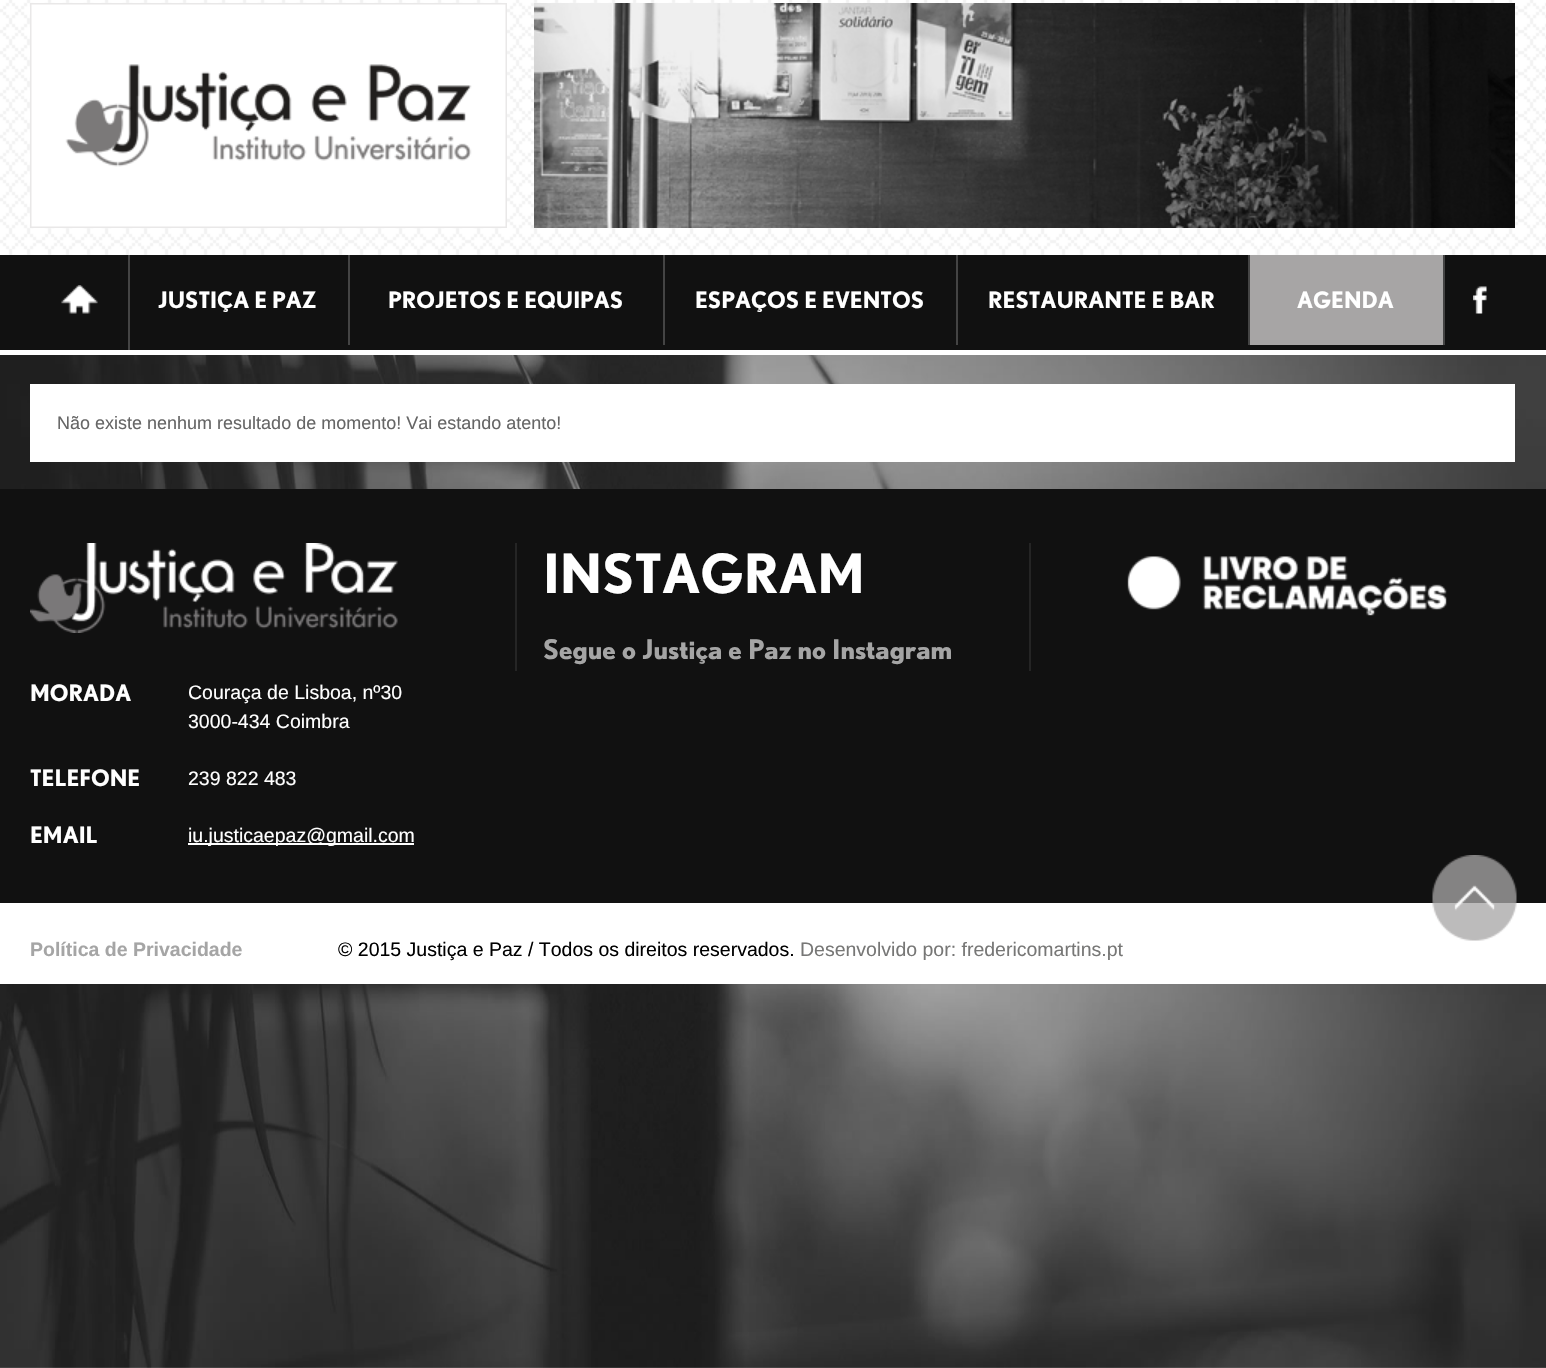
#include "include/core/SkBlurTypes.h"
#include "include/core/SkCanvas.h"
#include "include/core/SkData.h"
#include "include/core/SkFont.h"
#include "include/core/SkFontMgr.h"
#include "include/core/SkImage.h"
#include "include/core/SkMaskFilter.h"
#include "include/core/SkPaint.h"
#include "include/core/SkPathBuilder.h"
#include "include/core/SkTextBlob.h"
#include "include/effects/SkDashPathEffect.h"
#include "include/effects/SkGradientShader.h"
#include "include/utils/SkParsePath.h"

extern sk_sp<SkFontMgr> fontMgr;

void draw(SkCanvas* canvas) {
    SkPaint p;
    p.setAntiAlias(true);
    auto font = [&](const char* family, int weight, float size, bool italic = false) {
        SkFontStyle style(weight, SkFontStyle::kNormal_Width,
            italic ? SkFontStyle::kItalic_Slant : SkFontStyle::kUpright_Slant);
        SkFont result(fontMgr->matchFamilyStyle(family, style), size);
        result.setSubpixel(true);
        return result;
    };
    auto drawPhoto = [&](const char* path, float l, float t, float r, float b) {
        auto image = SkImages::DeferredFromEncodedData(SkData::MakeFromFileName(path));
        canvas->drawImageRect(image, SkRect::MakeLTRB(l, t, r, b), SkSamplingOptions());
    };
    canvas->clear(0xFFFFFFFF);
    drawPhoto("media/1.png", 0, 0, 1546, 255);
    drawPhoto("media/2.png", 30, 3, 507, 228);
    drawPhoto("media/3.png", 534, 3, 1515, 228);
    p.setColor(0xFF111111);
    canvas->drawRect(SkRect::MakeLTRB(0, 255, 1546, 350), p);
    p.setColor(0xFF444444);
    canvas->drawRect(SkRect::MakeLTRB(128, 255, 130, 350), p);
    drawPhoto("media/4.png", 61, 285, 98, 314);
    canvas->drawRect(SkRect::MakeLTRB(348, 255, 350, 345), p);
    auto font1 = font("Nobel", 700, 22.5f);
    p.setColor(0xFFFFFFFF);
    canvas->drawString("JUSTIÇA E PAZ", 158, 308, font1, p);
    p.setColor(0xFF444444);
    canvas->drawRect(SkRect::MakeLTRB(663, 255, 665, 345), p);
    p.setColor(0xFFFFFFFF);
    canvas->drawString("PROJETOS E EQUIPAS", 388, 308, font1, p);
    p.setColor(0xFF444444);
    canvas->drawRect(SkRect::MakeLTRB(956, 255, 958, 345), p);
    p.setColor(0xFFFFFFFF);
    canvas->drawString("ESPAÇOS E EVENTOS", 695, 308, font1, p);
    p.setColor(0xFF444444);
    canvas->drawRect(SkRect::MakeLTRB(1248, 255, 1250, 345), p);
    p.setColor(0xFFFFFFFF);
    canvas->drawString("RESTAURANTE E BAR", 988, 308, font1, p);
    p.setColor(0xFFA7A5A5);
    canvas->drawRect(SkRect::MakeLTRB(1250, 255, 1443, 345), p);
    p.setColor(0xFF444444);
    canvas->drawRect(SkRect::MakeLTRB(1443, 255, 1445, 345), p);
    p.setColor(0xFFFFFFFF);
    canvas->drawString("AGENDA", 1297, 308, font1, p);
    drawPhoto("media/5.png", 1473, 286, 1487, 314);
    drawPhoto("media/6.png", 0, 355, 1546, 1368);
    canvas->drawRect(SkRect::MakeLTRB(30, 384, 1515, 462), p);
    auto font2 = font("Liberation Sans", 400, 18);
    p.setColor(0xFF666666);
    canvas->drawString("Não existe nenhum resultado de momento! Vai estando atento!", 57, 429, font2, p);
    {
        const struct { float l, t, r, b; SkColor color; } items[] = {
            {0, 489, 1546, 903, 0xFF111111},
            {1029, 543, 1031, 671, 0xFF252525},
            {515, 543, 517, 671, 0xFF252525},
        };
        for (auto [l, t, r, b, color] : items) {
            p.setColor(color);
            canvas->drawRect(SkRect::MakeLTRB(l, t, r, b), p);
        }
    }
    auto font3 = font("Nobel", 700, 54);
    p.setColor(0xFFFFFFFF);
    canvas->drawString("INSTAGRAM", 543, 593, font3, p);
    auto font4 = font("Nobel", 700, 27);
    p.setColor(0xFFA5A5A5);
    canvas->drawString("Segue o Justiça e Paz no Instagram", 543, 659, font4, p);
    drawPhoto("media/7.png", 1127, 556, 1447, 616);
    drawPhoto("media/8.png", 30, 543, 398, 633);
    p.setColor(0xFFFFFFFF);
    {
        const struct { const char* s; float x, y; } items[] = {
            {"MORADA", 30, 701},
            {"TELEFONE", 30, 786},
            {"EMAIL", 30, 843},
        };
        for (auto [s, x, y] : items) {
            canvas->drawString(s, x, y, font1, p);
        }
    }
    auto font5 = font("Liberation Sans", 400, 19.5f);
    {
        const struct { const char* s; float x, y; } items[] = {
            {"Couraça de Lisboa, nº30", 188, 699},
            {"3000-434 Coimbra", 188, 728},
            {"239 822 483", 188, 785},
        };
        for (auto [s, x, y] : items) {
            canvas->drawString(s, x, y, font5, p);
        }
    }
    canvas->drawRect(SkRect::MakeLTRB(188, 843, 414, 845), p);
    canvas->drawString("iu.justicaepaz@gmail.com", 188, 842, font5, p);
    canvas->drawRect(SkRect::MakeLTRB(0, 903, 1546, 984), p);
    drawPhoto("media/9.png", 1432, 855, 1517, 941);
    auto font6 = font("Liberation Sans", 700, 19.5f);
    p.setColor(0xFFA5A5A5);
    canvas->drawString("Política de Privacidade", 30, 956, font6, p);
    p.setColor(0xFF000000);
    canvas->drawString("© 2015 Justiça e Paz / Todos os direitos reservados.", 338, 956, font5, p);
    p.setColor(0xFF777776);
    canvas->drawString("Desenvolvido por: fredericomartins.pt", 800, 956, font5, p);
}
